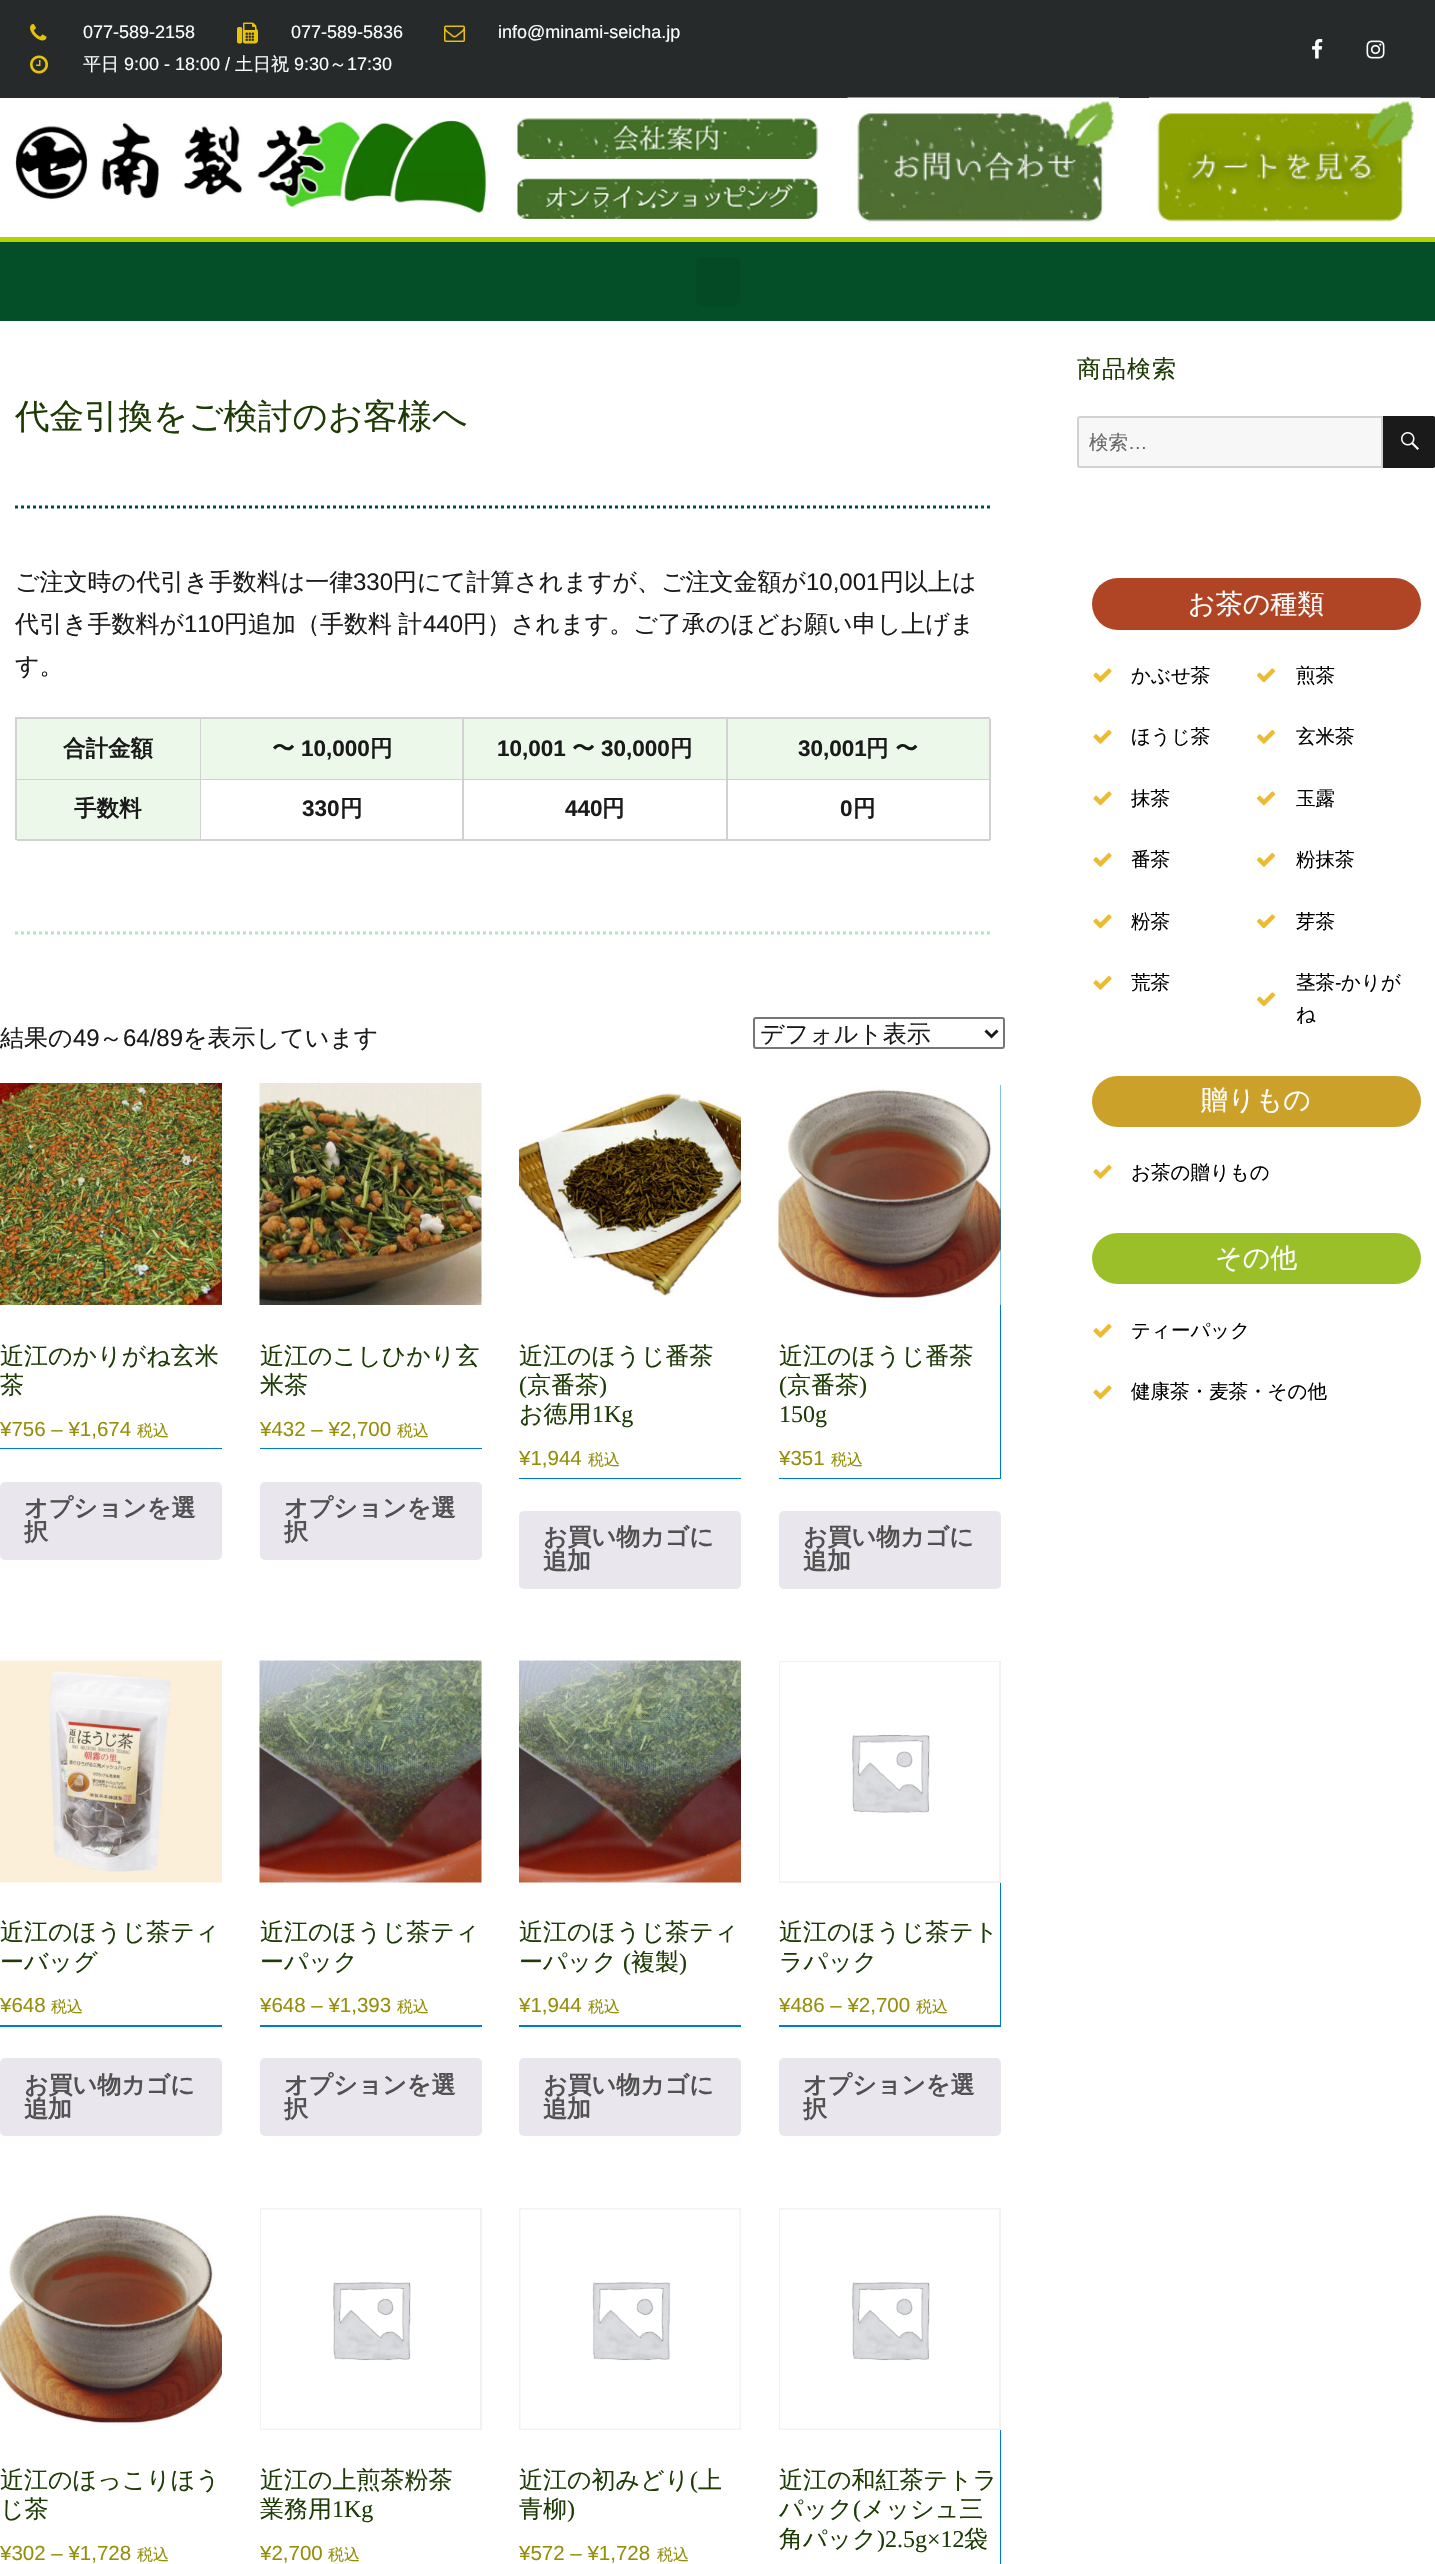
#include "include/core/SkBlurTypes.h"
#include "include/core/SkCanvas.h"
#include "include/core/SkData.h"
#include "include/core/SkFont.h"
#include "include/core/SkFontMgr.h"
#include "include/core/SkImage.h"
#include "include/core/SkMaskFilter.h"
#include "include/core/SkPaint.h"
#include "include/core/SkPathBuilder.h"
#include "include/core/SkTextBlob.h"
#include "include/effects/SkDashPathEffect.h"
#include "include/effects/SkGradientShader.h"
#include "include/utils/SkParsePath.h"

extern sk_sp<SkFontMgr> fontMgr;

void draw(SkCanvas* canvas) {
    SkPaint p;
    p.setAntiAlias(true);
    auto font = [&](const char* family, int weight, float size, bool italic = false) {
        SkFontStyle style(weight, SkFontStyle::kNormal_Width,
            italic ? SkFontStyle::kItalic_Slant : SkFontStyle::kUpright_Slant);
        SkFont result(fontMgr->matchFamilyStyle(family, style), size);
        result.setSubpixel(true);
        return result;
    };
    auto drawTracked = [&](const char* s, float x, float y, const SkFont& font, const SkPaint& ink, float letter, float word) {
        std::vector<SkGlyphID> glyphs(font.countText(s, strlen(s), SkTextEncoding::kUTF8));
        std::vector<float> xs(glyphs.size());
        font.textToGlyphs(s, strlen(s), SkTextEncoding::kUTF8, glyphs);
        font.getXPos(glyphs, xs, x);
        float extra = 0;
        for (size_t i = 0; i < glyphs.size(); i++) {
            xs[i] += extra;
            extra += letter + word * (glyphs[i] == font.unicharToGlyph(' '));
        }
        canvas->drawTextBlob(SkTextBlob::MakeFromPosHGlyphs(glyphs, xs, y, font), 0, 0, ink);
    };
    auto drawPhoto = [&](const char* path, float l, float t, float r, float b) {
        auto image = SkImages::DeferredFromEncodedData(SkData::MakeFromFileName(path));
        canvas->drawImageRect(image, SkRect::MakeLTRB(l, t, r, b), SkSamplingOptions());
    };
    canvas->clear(0xFFFFFFFF);
    p.setColor(0xFF262A2B);
    canvas->drawRect(SkRect::MakeLTRB(0, 0, 1435, 98), p);
    drawPhoto("media/1.png", 30, 24, 47, 41);
    auto font1 = font("Liberation Sans", 400, 18);
    p.setColor(0xFFFFFFFF);
    canvas->drawString("077-589-2158", 83, 38, font1, p);
    drawPhoto("media/2.png", 237, 22, 258, 44);
    canvas->drawString("077-589-5836", 291, 38, font1, p);
    drawPhoto("media/3.png", 444, 25, 465, 42);
    canvas->drawString("info@minami-seicha.jp", 498, 38, font1, p);
    drawPhoto("media/4.png", 30, 55, 48, 74);
    auto font2 = font("WenQuanYi Zen Hei", 500, 18);
    canvas->drawString("平日", 83, 70, font2, p);
    canvas->drawString("9:00 - 18:00 /", 124, 70, font1, p);
    canvas->drawString("土日祝", 235, 70, font2, p);
    canvas->drawString("9:30", 294, 70, font1, p);
    canvas->drawString("～", 329, 70, font2, p);
    canvas->drawString("17:30", 347, 70, font1, p);
    drawPhoto("media/5.png", 1312, 39, 1323, 59);
    drawPhoto("media/6.png", 1366, 40, 1385, 59);
    drawPhoto("media/7.png", 15, 120, 487, 214);
    drawPhoto("media/8.png", 517, 118, 818, 159);
    drawPhoto("media/9.png", 517, 178, 818, 219);
    drawPhoto("media/10.png", 847, 97, 1119, 225);
    drawPhoto("media/11.png", 1149, 97, 1421, 225);
    p.setColor(0xFF044F27);
    canvas->drawRect(SkRect::MakeLTRB(0, 242, 1435, 321), p);
    p.setColor(0xFFB5D100);
    canvas->drawRect(SkRect::MakeLTRB(0, 237, 1435, 242), p);
    p.setColor(0xFF044B25);
    canvas->drawRoundRect(SkRect::MakeLTRB(696, 257, 740, 306), 5, 5, p);
    auto font3 = font("WenQuanYi Zen Hei", 500, 34.5f);
    p.setColor(0xFF1E3B05);
    canvas->drawString("代金引換をご検討のお客様へ", 15, 428, font3, p);
    p.setStyle(SkPaint::kStroke_Style);
    p.setStrokeWidth(3);
    p.setColor(0xFF004C42);
    p.setPathEffect(SkDashPathEffect::Make({{3, 3}}, 0));
    canvas->drawPath(SkPathBuilder().moveTo(15, 507).lineTo(990, 507).detach(), p);
    p.setPathEffect(nullptr);
    auto font4 = font("WenQuanYi Zen Hei", 500, 24);
    p.setStyle(SkPaint::kFill_Style);
    p.setColor(0xFF1A1A1A);
    canvas->drawString("ご注文時の代引き手数料は一律", 15, 590, font4, p);
    auto font5 = font("Liberation Sans", 400, 24);
    canvas->drawString("330", 353, 590, font5, p);
    canvas->drawString("円にて計算されますが、ご注文金額が", 393, 590, font4, p);
    canvas->drawString("10,001", 806, 590, font5, p);
    canvas->drawString("円以上は", 880, 590, font4, p);
    canvas->drawString("代引き手数料が", 15, 632, font4, p);
    canvas->drawString("110", 184, 632, font5, p);
    drawTracked("円追加（手数料 計", 224, 632, font4, p, 0, -1);
    canvas->drawString("440", 423, 632, font5, p);
    canvas->drawString("円）されます。ご了承のほどお願い申し上げま", 463, 632, font4, p);
    canvas->drawString("す。", 15, 674, font4, p);
    {
        const struct { float l, t, r, b; SkColor color; } items[] = {
            {15, 717, 990, 719, 0xFFD1D1D1},
            {15, 717, 17, 840, 0xFFD1D1D1},
            {17, 719, 200, 779, 0xFFECF8EA},
            {200, 719, 201, 840, 0xFFD1D1D1},
            {17, 779, 201, 780, 0xFFD1D1D1},
        };
        for (auto [l, t, r, b, color] : items) {
            p.setColor(color);
            canvas->drawRect(SkRect::MakeLTRB(l, t, r, b), p);
        }
    }
    auto font6 = font("WenQuanYi Zen Hei", 700, 22.5f);
    p.setColor(0xFF1A1A1A);
    canvas->drawString("合計金額", 63, 756, font6, p);
    {
        const struct { float l, t, r, b; SkColor color; } items[] = {
            {201, 719, 462, 779, 0xFFECF8EA},
            {462, 719, 464, 840, 0xFFD1D1D1},
            {201, 779, 464, 780, 0xFFD1D1D1},
        };
        for (auto [l, t, r, b, color] : items) {
            p.setColor(color);
            canvas->drawRect(SkRect::MakeLTRB(l, t, r, b), p);
        }
    }
    p.setColor(0xFF1A1A1A);
    canvas->drawString("〜", 272, 756, font6, p);
    auto font7 = font("Liberation Sans", 700, 22.5f);
    canvas->drawString("10,000", 301, 756, font7, p);
    canvas->drawString("円", 370, 756, font6, p);
    {
        const struct { float l, t, r, b; SkColor color; } items[] = {
            {464, 719, 726, 779, 0xFFECF8EA},
            {726, 719, 728, 840, 0xFFD1D1D1},
            {464, 779, 728, 780, 0xFFD1D1D1},
        };
        for (auto [l, t, r, b, color] : items) {
            p.setColor(color);
            canvas->drawRect(SkRect::MakeLTRB(l, t, r, b), p);
        }
    }
    p.setColor(0xFF1A1A1A);
    canvas->drawString("10,001", 497, 756, font7, p);
    canvas->drawString("〜", 572, 756, font6, p);
    canvas->drawString("30,000", 601, 756, font7, p);
    canvas->drawString("円", 670, 756, font6, p);
    {
        const struct { float l, t, r, b; SkColor color; } items[] = {
            {728, 719, 989, 779, 0xFFECF8EA},
            {989, 719, 991, 840, 0xFFD1D1D1},
            {728, 779, 990, 780, 0xFFD1D1D1},
        };
        for (auto [l, t, r, b, color] : items) {
            p.setColor(color);
            canvas->drawRect(SkRect::MakeLTRB(l, t, r, b), p);
        }
    }
    p.setColor(0xFF1A1A1A);
    canvas->drawString("30,001", 798, 756, font7, p);
    canvas->drawString("円 〜", 866, 756, font6, p);
    p.setColor(0xFFECF8EA);
    canvas->drawRect(SkRect::MakeLTRB(17, 780, 200, 839), p);
    p.setColor(0xFFD1D1D1);
    canvas->drawRect(SkRect::MakeLTRB(17, 839, 990, 841), p);
    p.setColor(0xFF1A1A1A);
    canvas->drawString("手数料", 74, 816, font6, p);
    canvas->drawString("330", 302, 816, font7, p);
    canvas->drawString("円", 340, 816, font6, p);
    canvas->drawString("440", 565, 816, font7, p);
    canvas->drawString("円", 602, 816, font6, p);
    canvas->drawString("0", 840, 816, font7, p);
    canvas->drawString("円", 853, 816, font6, p);
    p.setStyle(SkPaint::kStroke_Style);
    p.setColor(0xFFB3E3C5);
    p.setPathEffect(SkDashPathEffect::Make({{3, 3}}, 0));
    canvas->drawPath(SkPathBuilder().moveTo(15, 933).lineTo(990, 933).detach(), p);
    p.setPathEffect(nullptr);
    p.setStyle(SkPaint::kFill_Style);
    p.setColor(0xFF1A1A1A);
    canvas->drawString("結果の", 0, 1046, font4, p);
    canvas->drawString("49", 73, 1046, font5, p);
    canvas->drawString("～", 99, 1046, font4, p);
    canvas->drawString("64/89", 123, 1046, font5, p);
    canvas->drawString("を表示しています", 183, 1046, font4, p);
    p.setStyle(SkPaint::kStroke_Style);
    p.setStrokeWidth(2);
    p.setColor(0xFF767676);
    canvas->drawRoundRect(SkRect::MakeLTRB(754, 1018, 1004, 1048), 2, 2, p);
    p.setStrokeWidth(3);
    p.setColor(0xFF1A1A1A);
    canvas->drawPath(SkPathBuilder().moveTo(985.5f, 1030.5f).lineTo(991.5f, 1036.5f).lineTo(997.5f, 1030.5f).detach(), p);
    p.setStyle(SkPaint::kFill_Style);
    canvas->drawString("デフォルト表示", 760, 1042, font4, p);
    p.setColor(0xFF007ACC);
    canvas->drawRect(SkRect::MakeLTRB(0, 1448, 222, 1449), p);
    drawPhoto("media/12.png", 0, 1083, 222, 1305);
    p.setColor(0xFF1E3B05);
    canvas->drawString("近江のかりがね玄米", 0, 1364, font4, p);
    canvas->drawString("茶", 0, 1393, font4, p);
    auto font8 = font("Liberation Sans", 400, 20.5f);
    p.setColor(0xFF958E09);
    canvas->drawString("¥756 – ¥1,674", 0, 1436, font8, p);
    auto font9 = font("WenQuanYi Zen Hei", 500, 16);
    canvas->drawString("税込", 137, 1436, font9, p);
    p.setColor(0xFFE9E6ED);
    canvas->drawRoundRect(SkRect::MakeLTRB(0, 1482, 222, 1560), 5, 5, p);
    auto font10 = font("WenQuanYi Zen Hei", 700, 24);
    p.setColor(0xFF515151);
    canvas->drawString("オプションを選", 24, 1516, font10, p);
    canvas->drawString("択", 24, 1540, font10, p);
    p.setColor(0xFF007ACC);
    canvas->drawPath(SkPathBuilder().moveTo(260, 1448).lineTo(260, 1449).lineTo(482, 1449).lineTo(482, 1085).lineTo(482, 1448).close().detach(), p);
    drawPhoto("media/13.png", 259, 1083, 482, 1305);
    p.setColor(0xFF1E3B05);
    canvas->drawString("近江のこしひかり玄", 260, 1364, font4, p);
    canvas->drawString("米茶", 260, 1393, font4, p);
    p.setColor(0xFF958E09);
    canvas->drawString("¥432 – ¥2,700", 260, 1436, font8, p);
    canvas->drawString("税込", 397, 1436, font9, p);
    p.setColor(0xFFE9E6ED);
    canvas->drawRoundRect(SkRect::MakeLTRB(260, 1482, 482, 1560), 5, 5, p);
    p.setColor(0xFF515151);
    canvas->drawString("オプションを選", 284, 1516, font10, p);
    canvas->drawString("択", 284, 1540, font10, p);
    p.setColor(0xFF007ACC);
    canvas->drawRect(SkRect::MakeLTRB(519, 1478, 741, 1479), p);
    drawPhoto("media/14.png", 519, 1089, 741, 1296);
    p.setColor(0xFF1E3B05);
    canvas->drawString("近江のほうじ番茶", 519, 1364, font4, p);
    auto font11 = font("Liberation Serif", 400, 24);
    canvas->drawString("(", 519, 1393, font11, p);
    canvas->drawString("京番茶", 527, 1393, font4, p);
    canvas->drawString(")", 599, 1393, font11, p);
    canvas->drawString("お徳用", 519, 1422, font4, p);
    canvas->drawString("1Kg", 592, 1422, font11, p);
    p.setColor(0xFF958E09);
    canvas->drawString("¥1,944", 519, 1465, font8, p);
    canvas->drawString("税込", 588, 1465, font9, p);
    p.setColor(0xFFE9E6ED);
    canvas->drawRoundRect(SkRect::MakeLTRB(519, 1511, 741, 1589), 5, 5, p);
    p.setColor(0xFF515151);
    canvas->drawString("お買い物カゴに", 543, 1545, font10, p);
    canvas->drawString("追加", 543, 1569, font10, p);
    p.setColor(0xFF007ACC);
    canvas->drawPath(SkPathBuilder().moveTo(779, 1478).lineTo(779, 1479).lineTo(1001, 1479).lineTo(1001, 1085).lineTo(1000, 1085).lineTo(1000, 1478).close().detach(), p);
    drawPhoto("media/15.png", 778, 1085, 1001, 1305);
    p.setColor(0xFF1E3B05);
    canvas->drawString("近江のほうじ番茶", 779, 1364, font4, p);
    canvas->drawString("(", 779, 1393, font11, p);
    canvas->drawString("京番茶", 787, 1393, font4, p);
    canvas->drawString(")", 859, 1393, font11, p);
    canvas->drawString("150g", 779, 1422, font11, p);
    p.setColor(0xFF958E09);
    canvas->drawString("¥351", 779, 1465, font8, p);
    canvas->drawString("税込", 831, 1465, font9, p);
    p.setColor(0xFFE9E6ED);
    canvas->drawRoundRect(SkRect::MakeLTRB(779, 1511, 1001, 1589), 5, 5, p);
    p.setColor(0xFF515151);
    canvas->drawString("お買い物カゴに", 803, 1545, font10, p);
    canvas->drawString("追加", 803, 1569, font10, p);
    p.setColor(0xFF007ACC);
    canvas->drawRect(SkRect::MakeLTRB(0, 2025, 222, 2027), p);
    drawPhoto("media/16.png", 0, 1660, 222, 1883);
    p.setColor(0xFF1E3B05);
    canvas->drawString("近江のほうじ茶ティ", 0, 1940, font4, p);
    canvas->drawString("ーバッグ", 0, 1970, font4, p);
    p.setColor(0xFF958E09);
    canvas->drawString("¥648", 0, 2012, font8, p);
    canvas->drawString("税込", 51, 2012, font9, p);
    p.setColor(0xFFE9E6ED);
    canvas->drawRoundRect(SkRect::MakeLTRB(0, 2058, 222, 2136), 5, 5, p);
    p.setColor(0xFF515151);
    canvas->drawString("お買い物カゴに", 24, 2093, font10, p);
    canvas->drawString("追加", 24, 2117, font10, p);
    p.setColor(0xFF007ACC);
    canvas->drawPath(SkPathBuilder().moveTo(260, 2025).lineTo(260, 2027).lineTo(482, 2027).lineTo(482, 1662).lineTo(482, 2025).close().detach(), p);
    drawPhoto("media/17.png", 259, 1660, 482, 1883);
    p.setColor(0xFF1E3B05);
    canvas->drawString("近江のほうじ茶ティ", 260, 1940, font4, p);
    canvas->drawString("ーパック", 260, 1970, font4, p);
    p.setColor(0xFF958E09);
    canvas->drawString("¥648 – ¥1,393", 260, 2012, font8, p);
    canvas->drawString("税込", 397, 2012, font9, p);
    p.setColor(0xFFE9E6ED);
    canvas->drawRoundRect(SkRect::MakeLTRB(260, 2058, 482, 2136), 5, 5, p);
    p.setColor(0xFF515151);
    canvas->drawString("オプションを選", 284, 2093, font10, p);
    canvas->drawString("択", 284, 2117, font10, p);
    p.setColor(0xFF007ACC);
    canvas->drawRect(SkRect::MakeLTRB(519, 2025, 741, 2027), p);
    drawPhoto("media/18.png", 519, 1660, 741, 1883);
    p.setColor(0xFF1E3B05);
    canvas->drawString("近江のほうじ茶ティ", 519, 1940, font4, p);
    canvas->drawString("ーパック", 519, 1970, font4, p);
    canvas->drawString("(", 623, 1970, font11, p);
    canvas->drawString("複製", 631, 1970, font4, p);
    canvas->drawString(")", 679, 1970, font11, p);
    p.setColor(0xFF958E09);
    canvas->drawString("¥1,944", 519, 2012, font8, p);
    canvas->drawString("税込", 588, 2012, font9, p);
    p.setColor(0xFFE9E6ED);
    canvas->drawRoundRect(SkRect::MakeLTRB(519, 2058, 741, 2136), 5, 5, p);
    p.setColor(0xFF515151);
    canvas->drawString("お買い物カゴに", 543, 2093, font10, p);
    canvas->drawString("追加", 543, 2117, font10, p);
    p.setColor(0xFF007ACC);
    canvas->drawPath(SkPathBuilder().moveTo(779, 2025).lineTo(779, 2027).lineTo(1001, 2027).lineTo(1001, 1662).lineTo(1000, 1662).lineTo(1000, 2025).close().detach(), p);
    p.setStyle(SkPaint::kStroke_Style);
    p.setStrokeWidth(2);
    p.setColor(0xFFF2F2F2);
    canvas->drawRect(SkRect::MakeLTRB(780, 1662, 1000, 1882), p);
    drawPhoto("media/19.png", 780, 1662, 999, 1881);
    p.setStyle(SkPaint::kFill_Style);
    p.setColor(0xFF1E3B05);
    canvas->drawString("近江のほうじ茶テト", 779, 1940, font4, p);
    canvas->drawString("ラパック", 779, 1970, font4, p);
    p.setColor(0xFF958E09);
    canvas->drawString("¥486 – ¥2,700", 779, 2012, font8, p);
    canvas->drawString("税込", 916, 2012, font9, p);
    p.setColor(0xFFE9E6ED);
    canvas->drawRoundRect(SkRect::MakeLTRB(779, 2058, 1001, 2136), 5, 5, p);
    p.setColor(0xFF515151);
    canvas->drawString("オプションを選", 803, 2093, font10, p);
    canvas->drawString("択", 803, 2117, font10, p);
    drawPhoto("media/20.png", 0, 2214, 222, 2427);
    p.setColor(0xFF1E3B05);
    canvas->drawString("近江のほっこりほう", 0, 2488, font4, p);
    canvas->drawString("じ茶", 0, 2517, font4, p);
    p.setColor(0xFF958E09);
    canvas->drawString("¥302 – ¥1,728", 0, 2560, font8, p);
    canvas->drawString("税込", 137, 2560, font9, p);
    p.setStyle(SkPaint::kStroke_Style);
    p.setColor(0xFFF2F2F2);
    canvas->drawRect(SkRect::MakeLTRB(261, 2209, 481, 2429), p);
    drawPhoto("media/21.png", 261, 2209, 480, 2429);
    p.setStyle(SkPaint::kFill_Style);
    p.setColor(0xFF1E3B05);
    canvas->drawString("近江の上煎茶粉茶", 260, 2488, font4, p);
    canvas->drawString("業務用", 260, 2517, font4, p);
    canvas->drawString("1Kg", 332, 2517, font11, p);
    p.setColor(0xFF958E09);
    canvas->drawString("¥2,700", 260, 2560, font8, p);
    canvas->drawString("税込", 328, 2560, font9, p);
    p.setStyle(SkPaint::kStroke_Style);
    p.setColor(0xFFF2F2F2);
    canvas->drawRect(SkRect::MakeLTRB(520, 2209, 740, 2429), p);
    drawPhoto("media/22.png", 520, 2209, 740, 2429);
    p.setStyle(SkPaint::kFill_Style);
    p.setColor(0xFF1E3B05);
    canvas->drawString("近江の初みどり", 519, 2488, font4, p);
    canvas->drawString("(", 690, 2488, font11, p);
    canvas->drawString("上", 698, 2488, font4, p);
    canvas->drawString("青柳", 519, 2517, font4, p);
    canvas->drawString(")", 567, 2517, font11, p);
    p.setColor(0xFF958E09);
    canvas->drawString("¥572 – ¥1,728", 519, 2560, font8, p);
    canvas->drawString("税込", 657, 2560, font9, p);
    p.setColor(0xFF007ACC);
    canvas->drawPath(SkPathBuilder().moveTo(779, 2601).lineTo(779, 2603).lineTo(1001, 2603).lineTo(1001, 2210).lineTo(1000, 2210).lineTo(1000, 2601).close().detach(), p);
    p.setStyle(SkPaint::kStroke_Style);
    p.setColor(0xFFF2F2F2);
    canvas->drawRect(SkRect::MakeLTRB(780, 2209, 1000, 2429), p);
    drawPhoto("media/21.png", 780, 2209, 999, 2429);
    p.setStyle(SkPaint::kFill_Style);
    p.setColor(0xFF1E3B05);
    canvas->drawString("近江の和紅茶テトラ", 779, 2488, font4, p);
    canvas->drawString("パック", 779, 2517, font4, p);
    canvas->drawString("(", 853, 2517, font11, p);
    canvas->drawString("メッシュ三", 861, 2517, font4, p);
    canvas->drawString("角パック", 779, 2547, font4, p);
    canvas->drawString(")2.5g×12", 877, 2547, font11, p);
    canvas->drawString("袋", 964, 2547, font4, p);
    drawTracked("商品検索", 1077, 377, font4, p, 1, 0);
    p.setColor(0xFFF7F7F7);
    canvas->drawPath(SkPathBuilder().moveTo(1080, 417).lineTo(1382, 417).lineTo(1382, 467).lineTo(1080, 467).cubicTo(1079, 467, 1078, 466, 1078, 465).lineTo(1078, 419).cubicTo(1078, 418, 1079, 417, 1080, 417).close().detach(), p);
    p.setStyle(SkPaint::kStroke_Style);
    p.setColor(0xFFD1D1D1);
    canvas->drawPath(SkPathBuilder().moveTo(1080, 417).lineTo(1382, 417).lineTo(1382, 467).lineTo(1080, 467).cubicTo(1079, 467, 1078, 466, 1078, 465).lineTo(1078, 419).cubicTo(1078, 418, 1079, 417, 1080, 417).close().detach(), p);
    auto font12 = font("WenQuanYi Zen Hei", 500, 19.5f);
    p.setStyle(SkPaint::kFill_Style);
    p.setColor(0xFF686868);
    canvas->drawString("検索", 1089, 449, font12, p);
    auto font13 = font("Liberation Sans", 400, 19.5f);
    canvas->drawString("…", 1128, 449, font13, p);
    p.setColor(0xFF1A1A1A);
    canvas->drawPath(SkPathBuilder().moveTo(1383, 416).lineTo(1433, 416).cubicTo(1434.5f, 416, 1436, 417.5f, 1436, 419).lineTo(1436, 465).cubicTo(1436, 466.5f, 1434.5f, 468, 1433, 468).lineTo(1383, 468).close().detach(), p);
    drawPhoto("media/23.png", 1401, 432, 1419, 450);
    p.setColor(0xFFAF4524);
    canvas->drawRoundRect(SkRect::MakeLTRB(1092, 578, 1421, 630), 26, 26, p);
    auto font14 = font("WenQuanYi Zen Hei", 500, 27);
    p.setColor(0xFFFFFFFF);
    canvas->drawString("お茶の種類", 1188, 613, font14, p);
    drawPhoto("media/24.png", 1093, 668, 1112, 683);
    p.setColor(0xFF000000);
    canvas->drawString("かぶせ茶", 1131, 682, font12, p);
    drawPhoto("media/25.png", 1093, 729, 1112, 744);
    canvas->drawString("ほうじ茶", 1131, 743, font12, p);
    drawPhoto("media/24.png", 1093, 791, 1112, 806);
    canvas->drawString("抹茶", 1131, 805, font12, p);
    drawPhoto("media/25.png", 1093, 852, 1112, 867);
    canvas->drawString("番茶", 1131, 866, font12, p);
    drawPhoto("media/24.png", 1093, 914, 1112, 929);
    canvas->drawString("粉茶", 1131, 928, font12, p);
    drawPhoto("media/25.png", 1093, 975, 1112, 990);
    canvas->drawString("荒茶", 1131, 989, font12, p);
    drawPhoto("media/26.png", 1256, 668, 1276, 683);
    canvas->drawString("煎茶", 1296, 682, font12, p);
    drawPhoto("media/27.png", 1256, 729, 1276, 744);
    canvas->drawString("玄米茶", 1296, 743, font12, p);
    drawPhoto("media/26.png", 1256, 791, 1276, 806);
    canvas->drawString("玉露", 1296, 805, font12, p);
    drawPhoto("media/27.png", 1256, 852, 1276, 867);
    canvas->drawString("粉抹茶", 1296, 866, font12, p);
    drawPhoto("media/26.png", 1256, 914, 1276, 929);
    canvas->drawString("芽茶", 1296, 928, font12, p);
    drawPhoto("media/26.png", 1256, 992, 1276, 1007);
    canvas->drawString("茎茶", 1296, 989, font12, p);
    canvas->drawString("-", 1335, 989, font13, p);
    canvas->drawString("かりが", 1341, 989, font12, p);
    canvas->drawString("ね", 1296, 1021, font12, p);
    p.setColor(0xFFCCA12A);
    canvas->drawRoundRect(SkRect::MakeLTRB(1092, 1076, 1421, 1127), 25.5f, 25.5f, p);
    p.setColor(0xFFFFFFFF);
    canvas->drawString("贈りもの", 1201, 1109, font14, p);
    drawPhoto("media/25.png", 1093, 1164, 1112, 1179);
    p.setColor(0xFF000000);
    canvas->drawString("お茶の贈りもの", 1131, 1179, font12, p);
    p.setColor(0xFF9BBF28);
    canvas->drawRoundRect(SkRect::MakeLTRB(1092, 1233, 1421, 1284), 25.5f, 25.5f, p);
    p.setColor(0xFFFFFFFF);
    canvas->drawString("その他", 1215, 1267, font14, p);
    drawPhoto("media/25.png", 1093, 1323, 1112, 1338);
    p.setColor(0xFF000000);
    canvas->drawString("ティーパック", 1131, 1337, font12, p);
    drawPhoto("media/24.png", 1093, 1385, 1112, 1400);
    canvas->drawString("健康茶・麦茶・その他", 1131, 1398, font12, p);
}
